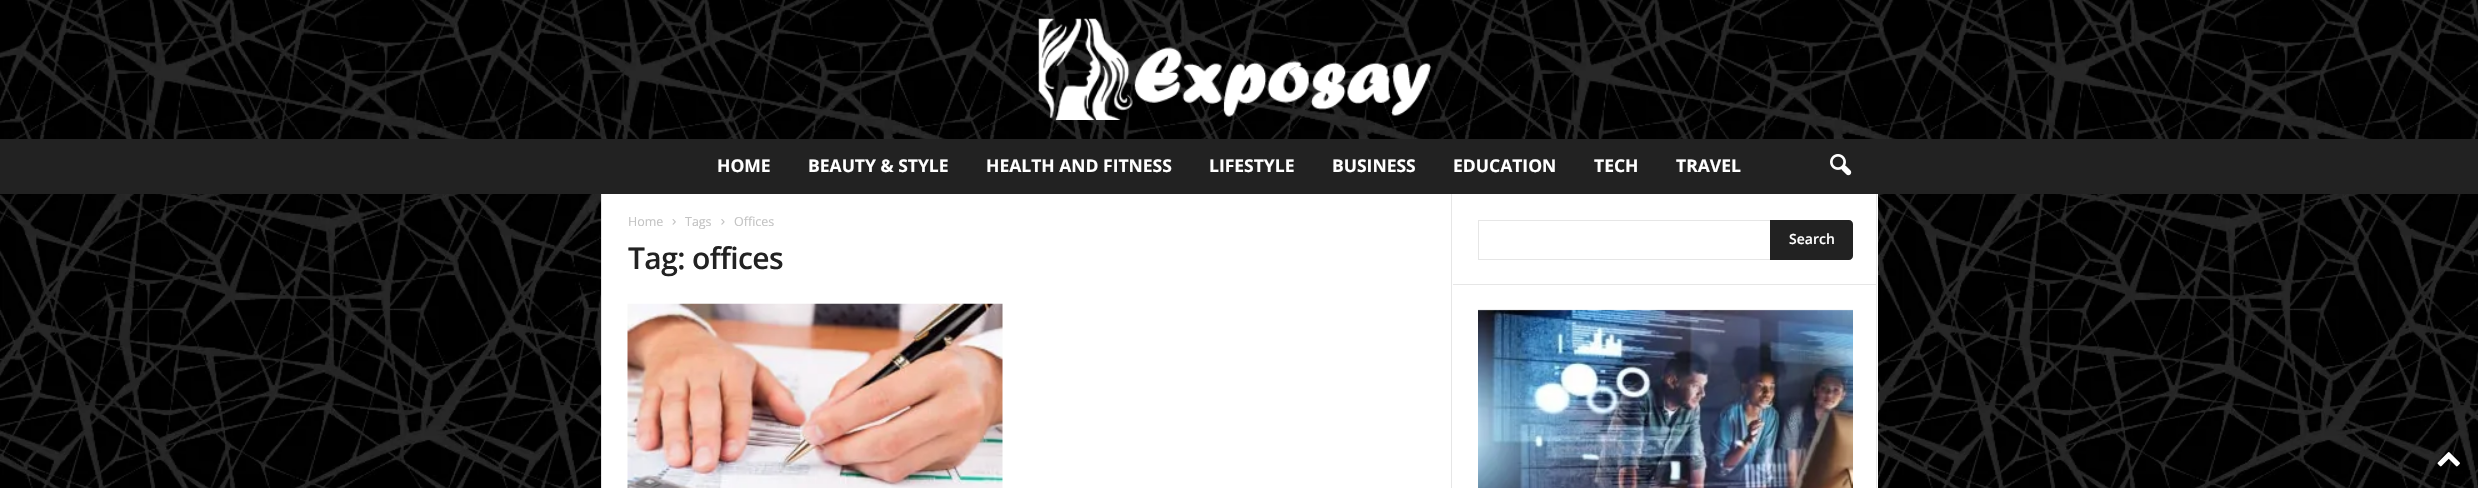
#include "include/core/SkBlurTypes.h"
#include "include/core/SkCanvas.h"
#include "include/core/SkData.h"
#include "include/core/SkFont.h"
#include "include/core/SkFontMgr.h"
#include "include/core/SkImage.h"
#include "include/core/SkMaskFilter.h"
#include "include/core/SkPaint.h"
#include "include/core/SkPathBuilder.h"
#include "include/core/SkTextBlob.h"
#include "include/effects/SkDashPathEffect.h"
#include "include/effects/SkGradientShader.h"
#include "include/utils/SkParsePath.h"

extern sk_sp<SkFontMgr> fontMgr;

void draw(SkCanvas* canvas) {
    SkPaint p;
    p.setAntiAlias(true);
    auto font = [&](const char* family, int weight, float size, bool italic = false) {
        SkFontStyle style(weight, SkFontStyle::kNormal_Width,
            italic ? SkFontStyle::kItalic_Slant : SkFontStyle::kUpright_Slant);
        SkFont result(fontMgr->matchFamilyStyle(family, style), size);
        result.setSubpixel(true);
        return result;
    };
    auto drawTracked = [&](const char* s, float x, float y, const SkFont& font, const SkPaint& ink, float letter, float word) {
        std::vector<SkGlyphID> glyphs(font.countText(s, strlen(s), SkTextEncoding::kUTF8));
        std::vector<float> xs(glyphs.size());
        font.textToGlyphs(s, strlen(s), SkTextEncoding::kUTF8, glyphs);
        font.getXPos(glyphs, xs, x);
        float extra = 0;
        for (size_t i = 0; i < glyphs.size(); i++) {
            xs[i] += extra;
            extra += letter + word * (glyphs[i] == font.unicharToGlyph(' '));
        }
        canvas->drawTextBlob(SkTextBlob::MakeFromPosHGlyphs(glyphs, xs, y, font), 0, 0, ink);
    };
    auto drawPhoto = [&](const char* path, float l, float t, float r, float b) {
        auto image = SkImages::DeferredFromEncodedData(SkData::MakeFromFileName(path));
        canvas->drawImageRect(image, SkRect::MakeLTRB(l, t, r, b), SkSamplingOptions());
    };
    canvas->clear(0xFFFFFFFF);
    drawPhoto("media/1.png", 0, 0, 2478, 488);
    drawPhoto("media/2.png", 1038, 18, 1432, 120);
    p.setColor(0xFF222222);
    canvas->drawRect(SkRect::MakeLTRB(0, 139, 2478, 194), p);
    auto font1 = font("Open Sans", 700, 17.5f);
    p.setColor(0xFFFFFFFF);
    {
        const struct { const char* s; float x, y; } items[] = {
            {"HOME", 717, 172},
            {"BEAUTY & STYLE", 808, 172},
            {"HEALTH AND FITNESS", 986, 172},
            {"LIFESTYLE", 1209, 172},
            {"BUSINESS", 1332, 172},
            {"EDUCATION", 1453, 172},
            {"TECH", 1594, 172},
            {"TRAVEL", 1676, 172},
        };
        for (auto [s, x, y] : items) {
            canvas->drawString(s, x, y, font1, p);
        }
    }
    drawPhoto("media/3.png", 1830, 154, 1852, 176);
    canvas->drawRect(SkRect::MakeLTRB(602, 194, 1878, 488), p);
    p.setColor(0xFFE6E6E6);
    canvas->drawRect(SkRect::MakeLTRB(601, 194, 602, 488), p);
    auto font2 = font("Open Sans", 400, 12.5f);
    p.setColor(0xFFC3C3C3);
    canvas->drawString("Home", 628, 226, font2, p);
    drawPhoto("media/4.png", 672, 219, 676, 225);
    canvas->drawString("Tags", 685, 226, font2, p);
    drawPhoto("media/5.png", 721, 219, 725, 225);
    canvas->drawString("Offices", 734, 226, font2, p);
    auto font3 = font("Open Sans", 600, 30);
    p.setColor(0xFF222222);
    drawTracked("Tag: offices", 628, 269, font3, p, -0.6f, 0);
    drawPhoto("media/6.png", 627, 303, 1003, 488);
    {
        const struct { float l, t, r, b; SkColor color; } items[] = {
            {1451, 194, 1452, 488, 0xFFE6E6E6},
            {1478, 220, 1770, 221, 0xFFE6E6E6},
            {1478, 259, 1770, 260, 0xFFE6E6E6},
            {1478, 220, 1479, 260, 0xFFE6E6E6},
        };
        for (auto [l, t, r, b, color] : items) {
            p.setColor(color);
            canvas->drawRect(SkRect::MakeLTRB(l, t, r, b), p);
        }
    }
    p.setColor(0xFF222222);
    canvas->drawPath(SkPathBuilder().moveTo(1770, 220).lineTo(1849, 220).cubicTo(1851, 220, 1853, 222, 1853, 224).lineTo(1853, 256).cubicTo(1853, 258, 1851, 260, 1849, 260).lineTo(1770, 260).close().detach(), p);
    auto font4 = font("Open Sans", 600, 14);
    p.setColor(0xFFFFFFFF);
    canvas->drawString("Search", 1789, 244, font4, p);
    p.setColor(0xFFE6E6E6);
    canvas->drawRect(SkRect::MakeLTRB(1453, 284, 1876, 285), p);
    drawPhoto("media/7.png", 1478, 309, 1853, 488);
    canvas->drawRect(SkRect::MakeLTRB(1876, 194, 1877, 488), p);
    drawPhoto("media/8.png", 2437, 452, 2460, 467);
}
